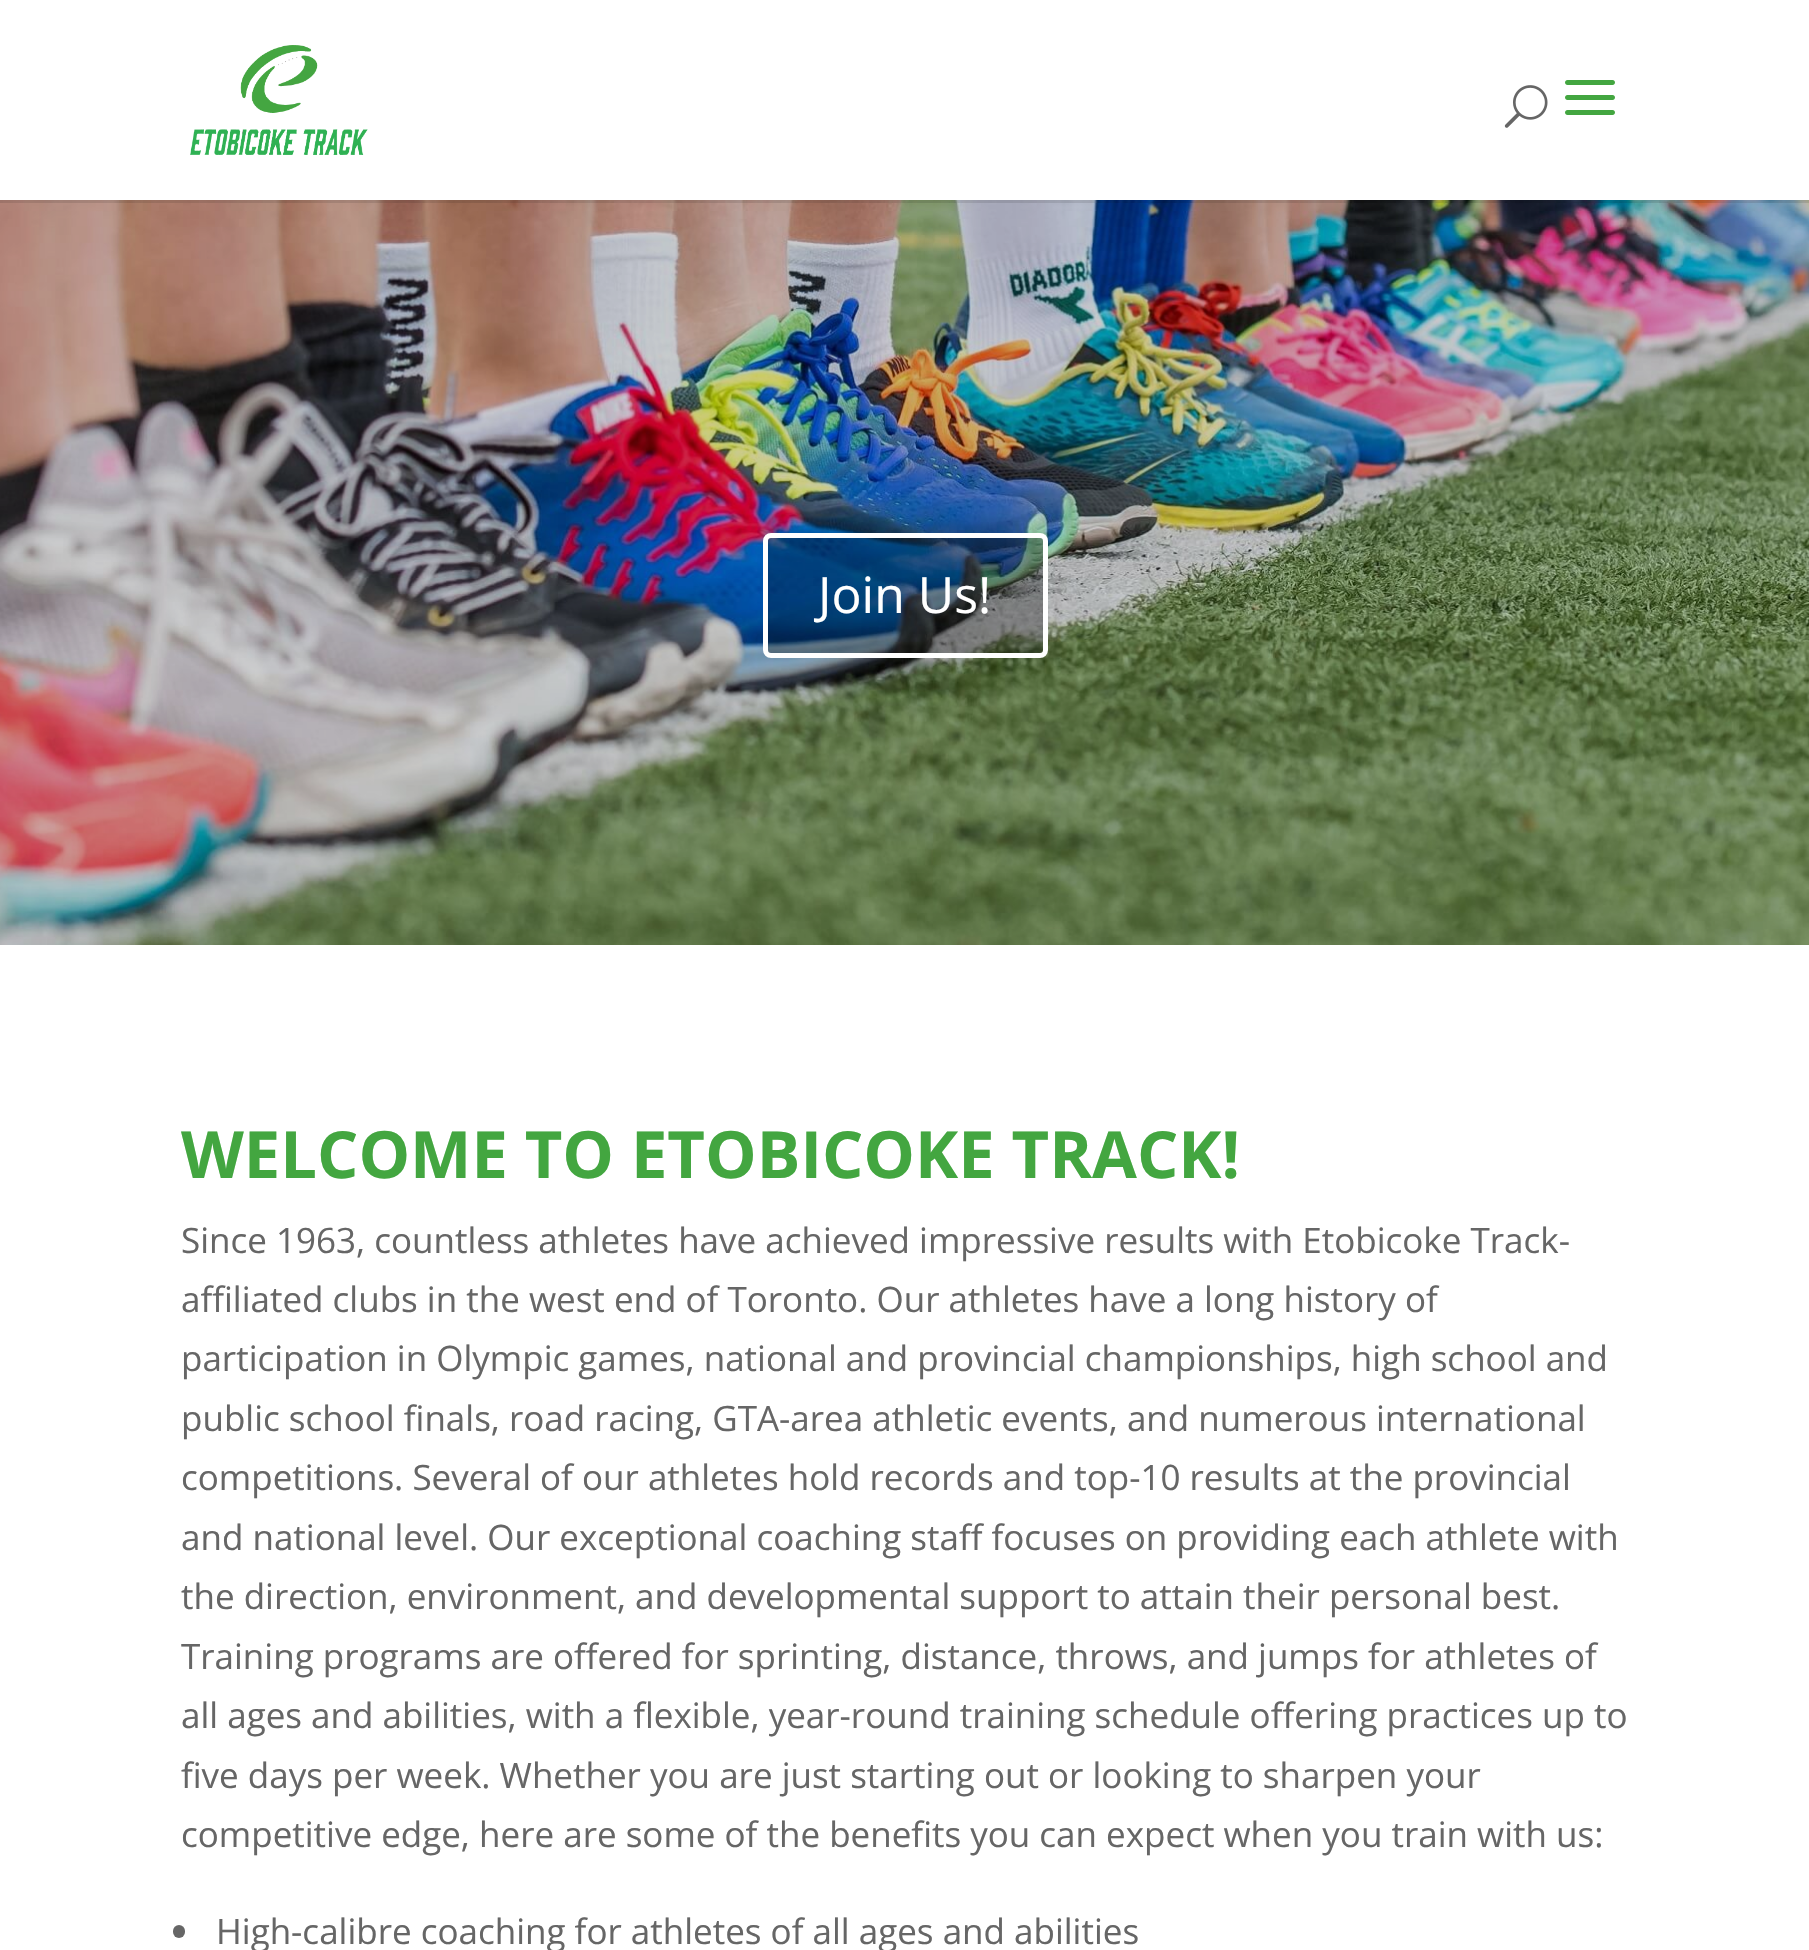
#include "include/core/SkBlurTypes.h"
#include "include/core/SkCanvas.h"
#include "include/core/SkData.h"
#include "include/core/SkFont.h"
#include "include/core/SkFontMgr.h"
#include "include/core/SkImage.h"
#include "include/core/SkMaskFilter.h"
#include "include/core/SkPaint.h"
#include "include/core/SkPathBuilder.h"
#include "include/core/SkTextBlob.h"
#include "include/effects/SkDashPathEffect.h"
#include "include/effects/SkGradientShader.h"
#include "include/utils/SkParsePath.h"

extern sk_sp<SkFontMgr> fontMgr;

void draw(SkCanvas* canvas) {
    SkPaint p;
    p.setAntiAlias(true);
    auto font = [&](const char* family, int weight, float size, bool italic = false) {
        SkFontStyle style(weight, SkFontStyle::kNormal_Width,
            italic ? SkFontStyle::kItalic_Slant : SkFontStyle::kUpright_Slant);
        SkFont result(fontMgr->matchFamilyStyle(family, style), size);
        result.setSubpixel(true);
        return result;
    };
    auto drawPhoto = [&](const char* path, float l, float t, float r, float b) {
        auto image = SkImages::DeferredFromEncodedData(SkData::MakeFromFileName(path));
        canvas->drawImageRect(image, SkRect::MakeLTRB(l, t, r, b), SkSamplingOptions());
    };
    canvas->clear(0xFFFFFFFF);
    drawPhoto("media/4.png", 0, 200, 1809, 945);
    p.setColor(0x1A000000);
    canvas->drawRect(SkRect::MakeLTRB(0, 200, 1809, 203), p);
    drawPhoto("media/1.png", 190, 45, 368, 155);
    drawPhoto("media/2.png", 1504, 85, 1548, 128);
    drawPhoto("media/3.png", 1565, 80, 1615, 115);
    p.setColor(0x4D000000);
    canvas->drawRoundRect(SkRect::MakeLTRB(765.5f, 535.5f, 1045.5f, 655.5f), 5.5f, 5.5f, p);
    p.setStyle(SkPaint::kStroke_Style);
    p.setStrokeWidth(5);
    p.setColor(0xFFFFFFFF);
    canvas->drawRoundRect(SkRect::MakeLTRB(765.5f, 535.5f, 1045.5f, 655.5f), 5.5f, 5.5f, p);
    auto font1 = font("Open Sans", 400, 50);
    p.setStyle(SkPaint::kFill_Style);
    canvas->drawString("Join Us!", 818, 613, font1, p);
    auto font2 = font("Open Sans", 700, 65);
    p.setColor(0xFF43A640);
    canvas->drawString("WELCOME TO ETOBICOKE TRACK!", 181, 1178, font2, p);
    auto font3 = font("Open Sans", 400, 35);
    p.setColor(0xFF666666);
    {
        const struct { const char* s; float x, y; } items[] = {
            {"Since 1963, countless athletes have achieved impressive results with Etobicoke Track-", 181, 1253},
            {"affiliated clubs in the west end of Toronto. Our athletes have a long history of", 181, 1312},
            {"participation in Olympic games, national and provincial championships, high school and", 181, 1371},
            {"public school finals, road racing, GTA-area athletic events, and numerous international", 181, 1431},
            {"competitions. Several of our athletes hold records and top-10 results at the provincial", 181, 1490},
            {"and national level. Our exceptional coaching staff focuses on providing each athlete with", 181, 1550},
            {"the direction, environment, and developmental support to attain their personal best.", 181, 1609},
            {"Training programs are offered for sprinting, distance, throws, and jumps for athletes of", 181, 1669},
            {"all ages and abilities, with a flexible, year-round training schedule offering practices up to", 181, 1728},
            {"five days per week. Whether you are just starting out or looking to sharpen your", 181, 1788},
            {"competitive edge, here are some of the benefits you can expect when you train with us:", 181, 1847},
        };
        for (auto [s, x, y] : items) {
            canvas->drawString(s, x, y, font3, p);
        }
    }
    canvas->drawRoundRect(SkRect::MakeLTRB(173, 1925, 185, 1938), 6, 6, p);
    canvas->drawString("High-calibre coaching for athletes of all ages and abilities", 216, 1944, font3, p);
}
